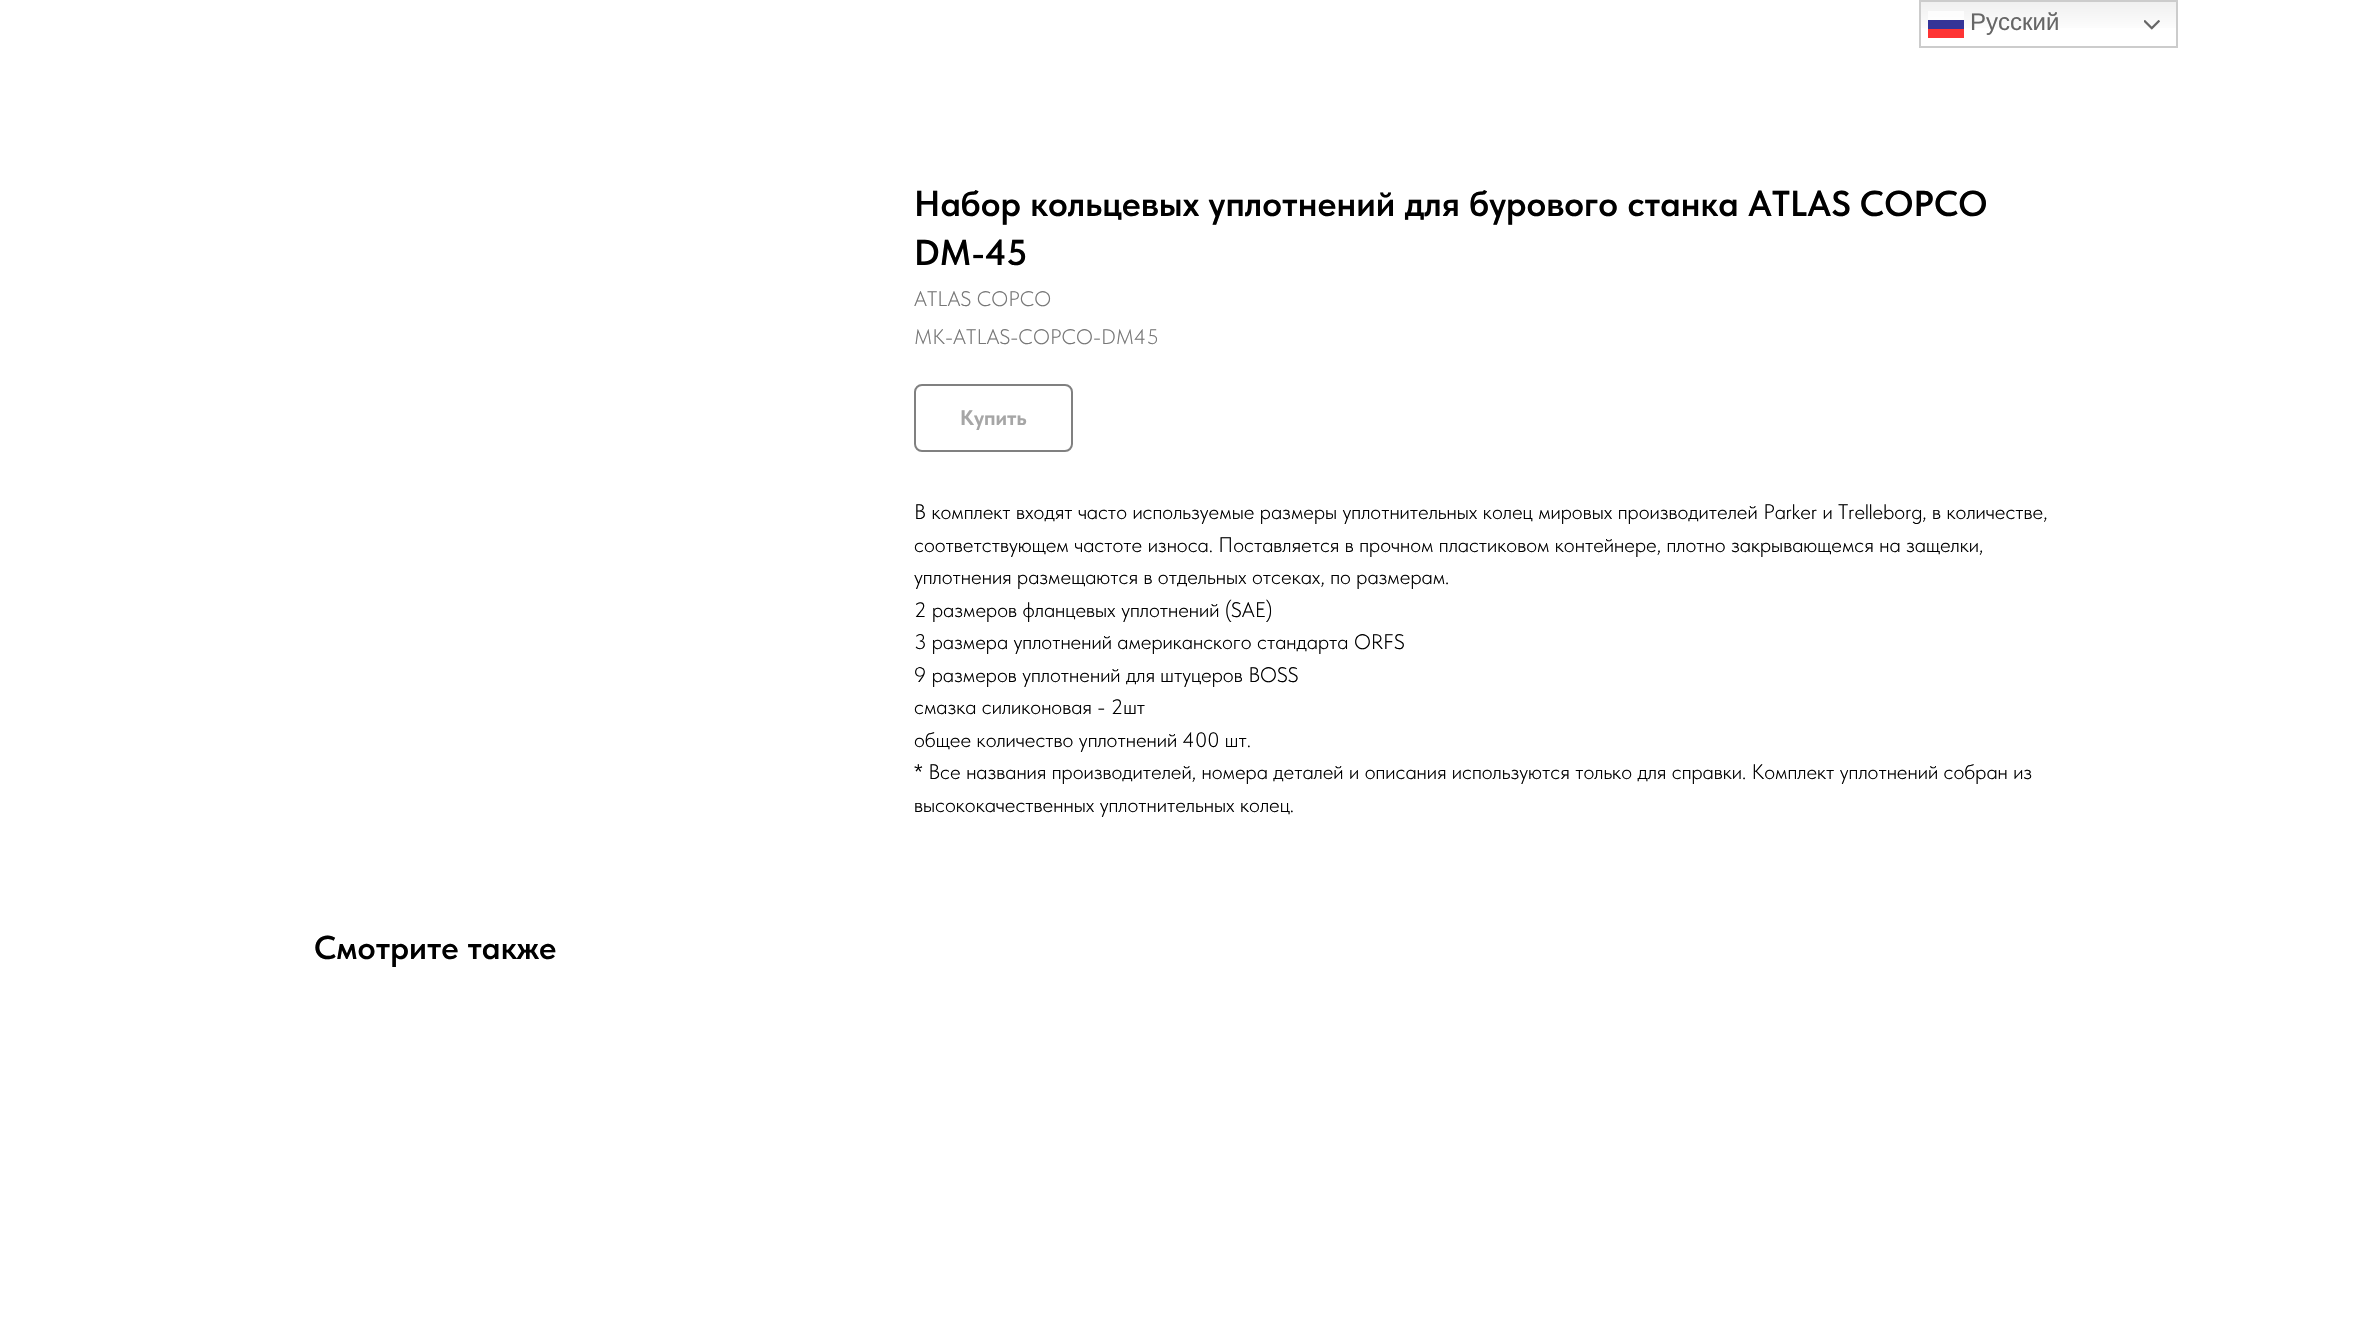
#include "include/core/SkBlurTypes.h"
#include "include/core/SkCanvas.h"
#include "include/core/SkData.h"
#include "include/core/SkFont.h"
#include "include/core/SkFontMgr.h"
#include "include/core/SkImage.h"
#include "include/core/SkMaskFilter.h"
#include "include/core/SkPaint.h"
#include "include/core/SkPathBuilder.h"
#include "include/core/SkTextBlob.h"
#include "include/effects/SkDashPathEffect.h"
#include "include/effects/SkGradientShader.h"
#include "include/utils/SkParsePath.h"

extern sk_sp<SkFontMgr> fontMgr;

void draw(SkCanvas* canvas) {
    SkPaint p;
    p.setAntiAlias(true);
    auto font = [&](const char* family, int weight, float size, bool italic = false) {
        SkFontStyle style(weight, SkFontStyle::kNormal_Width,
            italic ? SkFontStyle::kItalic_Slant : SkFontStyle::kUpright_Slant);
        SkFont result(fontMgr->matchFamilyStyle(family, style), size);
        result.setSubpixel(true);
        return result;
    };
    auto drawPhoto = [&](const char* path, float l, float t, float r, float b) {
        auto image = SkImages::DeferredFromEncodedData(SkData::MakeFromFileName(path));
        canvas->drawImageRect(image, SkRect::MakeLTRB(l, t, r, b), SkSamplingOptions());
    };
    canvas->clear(0xFFFFFFFF);
    {
        const SkColor colors[] = {0xFFEFEFEF, 0xFFFFFFFF};
        const float stops[] = {0, 0.7f};
        const SkPoint ends[] = {{2048, 0}, {2048, 48}};
        p.setShader(SkGradientShader::MakeLinear(ends, colors, stops, 2, SkTileMode::kClamp));
        p.setAlpha(255);
    }
    canvas->drawRect(SkRect::MakeLTRB(1921, 2, 2176, 28), p);
    {
        const SkColor colors[] = {0xFFFCFCFC, 0xFFFFFFFF};
        const float stops[] = {0, 0.7f};
        const SkPoint ends[] = {{2048, 0}, {2048, 48}};
        p.setShader(SkGradientShader::MakeLinear(ends, colors, stops, 2, SkTileMode::kClamp));
        p.setAlpha(255);
    }
    canvas->drawRect(SkRect::MakeLTRB(1928, 11, 1964, 20), p);
    p.setStyle(SkPaint::kStroke_Style);
    p.setStrokeWidth(2);
    p.setShader(nullptr);
    p.setColor(0xFFCCCCCC);
    canvas->drawRect(SkRect::MakeLTRB(1920, 1, 2177, 47), p);
    p.setStyle(SkPaint::kFill_Style);
    p.setColor(0xFF343498);
    canvas->drawRect(SkRect::MakeLTRB(1928, 20, 1964, 29), p);
    auto font1 = font("Liberation Sans", 400, 24);
    p.setColor(0xFF666666);
    canvas->drawString("Русский", 1970, 30, font1, p);
    drawPhoto("media/1.png", 2144, 20, 2160, 30);
    p.setColor(0xFFFE3434);
    canvas->drawRect(SkRect::MakeLTRB(1928, 29, 1964, 38), p);
    auto font2 = font("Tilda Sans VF", 600, 36);
    p.setColor(0xFF000000);
    canvas->drawString("Набор кольцевых уплотнений для бурового станка ATLAS COPCO", 914, 216, font2, p);
    canvas->drawString("DM-45", 914, 265, font2, p);
    auto font3 = font("Tilda Sans VF", 300, 21);
    p.setColor(0xFF777777);
    canvas->drawString("ATLAS COPCO", 914, 306, font3, p);
    canvas->drawString("MK-ATLAS-COPCO-DM45", 914, 344, font3, p);
    p.setStyle(SkPaint::kStroke_Style);
    p.setColor(0xFF808080);
    canvas->drawRoundRect(SkRect::MakeLTRB(915, 385, 1072, 451), 7, 7, p);
    auto font4 = font("Tilda Sans VF", 700, 21);
    p.setStyle(SkPaint::kFill_Style);
    p.setColor(0xFFA6A6A6);
    canvas->drawString("Купить", 960, 425, font4, p);
    p.setColor(0xFF000000);
    {
        const struct { const char* s; float x, y; } items[] = {
            {"В комплект входят часто используемые размеры уплотнительных колец мировых производителей Parker и Trelleborg, в количестве,", 914, 519},
            {"соответствующем частоте износа. Поставляется в прочном пластиковом контейнере, плотно закрывающемся на защелки,", 914, 552},
            {"уплотнения размещаются в отдельных отсеках, по размерам.", 914, 584},
            {"2 размеров фланцевых уплотнений (SAE)", 914, 617},
            {"3 размера уплотнений американского стандарта ORFS", 914, 649},
            {"9 размеров уплотнений для штуцеров BOSS", 914, 682},
            {"смазка силиконовая - 2шт", 914, 714},
            {"общее количество уплотнений 400 шт.", 914, 747},
            {"* Все названия производителей, номера деталей и описания используются только для справки. Комплект уплотнений собран из", 914, 779},
            {"высококачественных уплотнительных колец.", 914, 812},
        };
        for (auto [s, x, y] : items) {
            canvas->drawString(s, x, y, font3, p);
        }
    }
    auto font5 = font("Tilda Sans VF", 600, 33);
    canvas->drawString("Смотрите также", 314, 959, font5, p);
}
